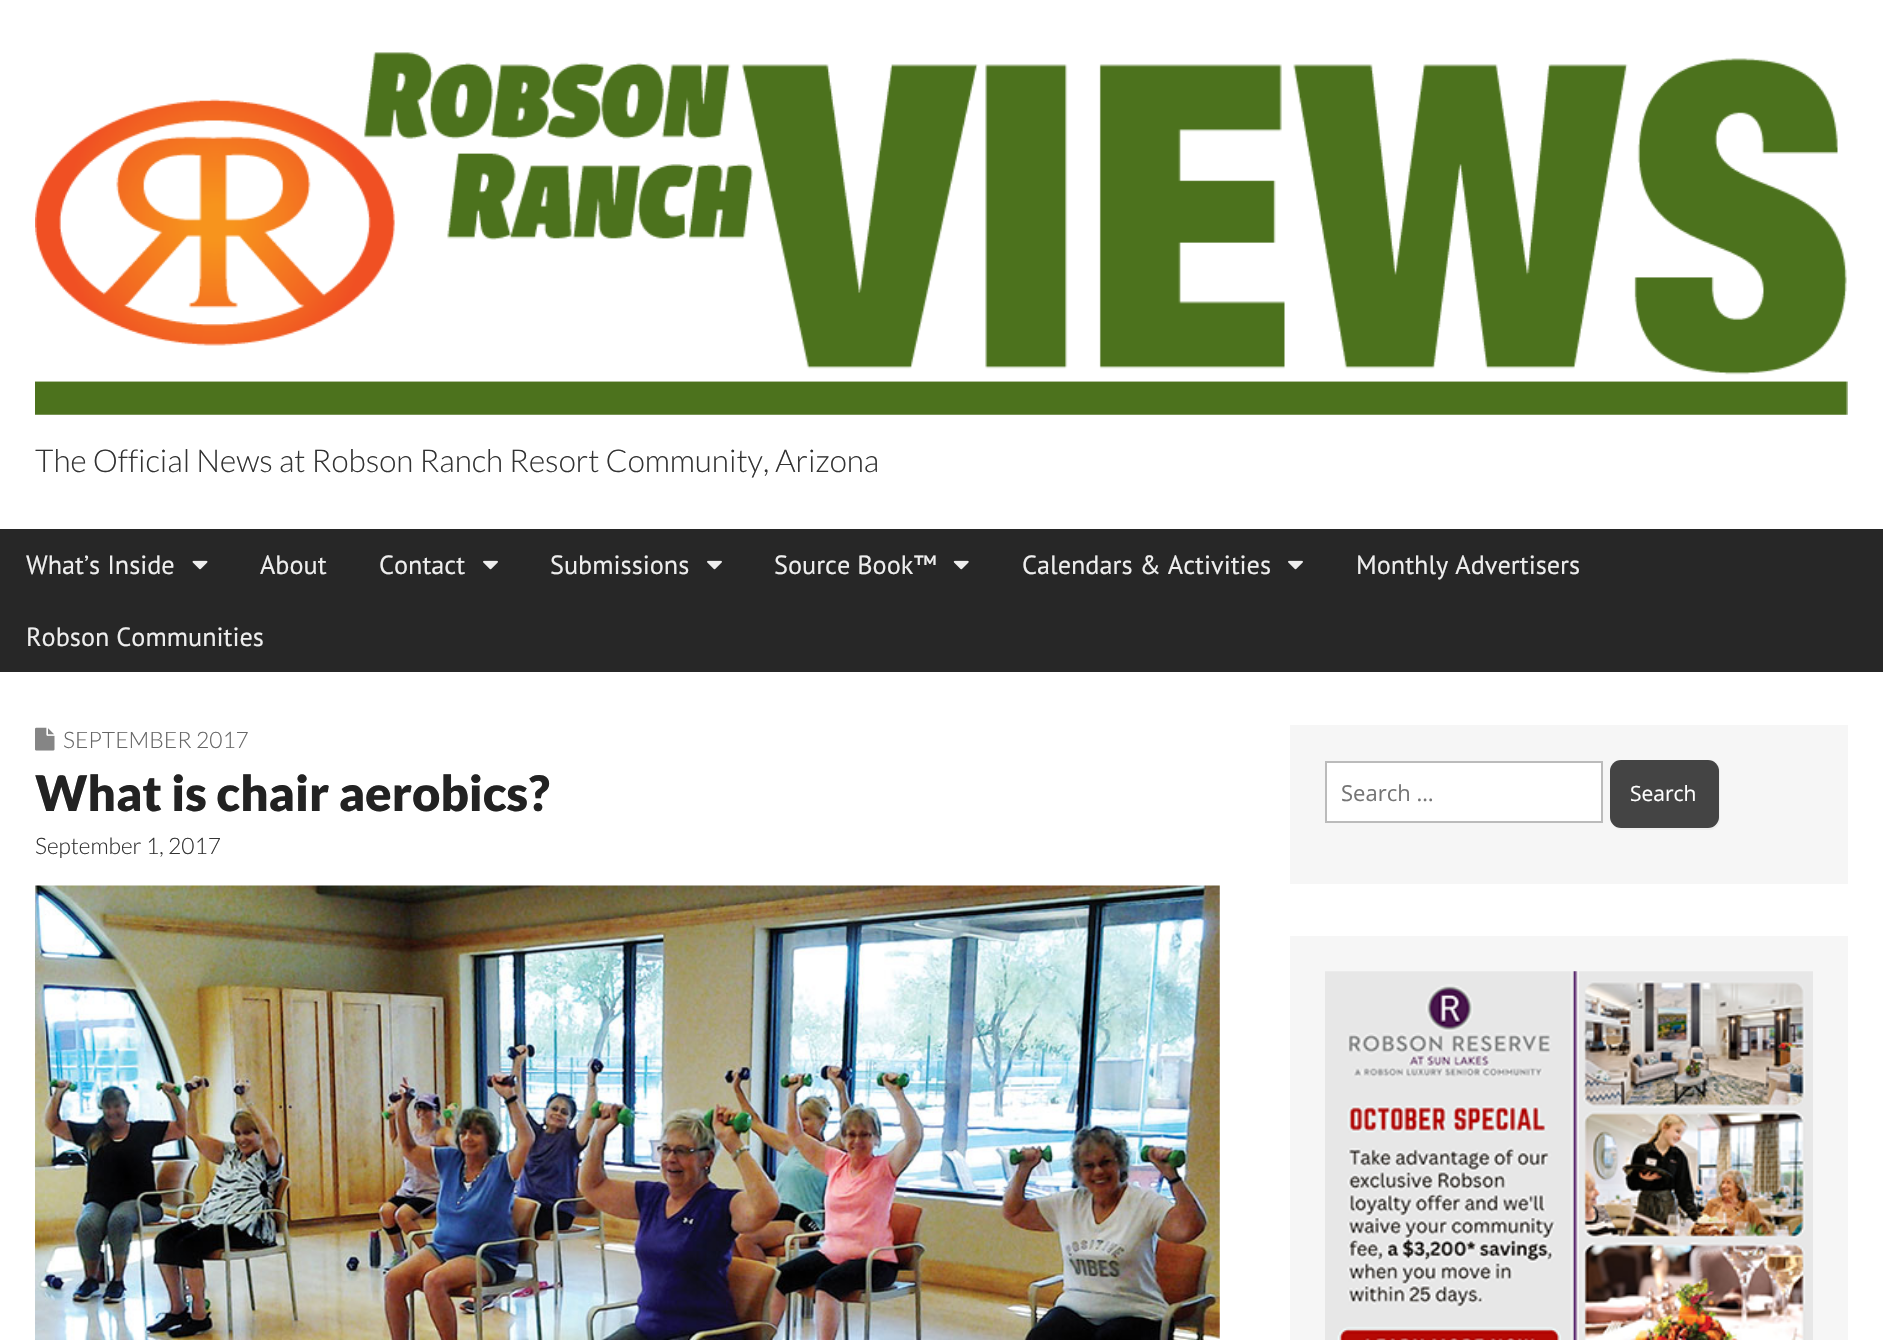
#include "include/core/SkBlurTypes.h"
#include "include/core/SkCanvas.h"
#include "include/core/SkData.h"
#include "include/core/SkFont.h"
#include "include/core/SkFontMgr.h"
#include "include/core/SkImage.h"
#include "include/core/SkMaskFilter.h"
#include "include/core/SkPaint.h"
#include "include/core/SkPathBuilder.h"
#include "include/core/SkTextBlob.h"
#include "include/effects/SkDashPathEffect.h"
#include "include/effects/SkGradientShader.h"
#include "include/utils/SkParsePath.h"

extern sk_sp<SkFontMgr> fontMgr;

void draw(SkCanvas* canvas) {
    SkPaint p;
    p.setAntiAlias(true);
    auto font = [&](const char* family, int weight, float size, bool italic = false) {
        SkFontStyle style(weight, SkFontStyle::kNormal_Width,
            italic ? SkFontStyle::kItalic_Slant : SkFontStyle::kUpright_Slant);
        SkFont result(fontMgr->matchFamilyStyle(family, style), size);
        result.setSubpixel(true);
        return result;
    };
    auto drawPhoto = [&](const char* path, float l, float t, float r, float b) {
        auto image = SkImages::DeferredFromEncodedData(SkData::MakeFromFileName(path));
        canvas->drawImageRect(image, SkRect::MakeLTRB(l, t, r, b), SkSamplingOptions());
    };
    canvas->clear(0xFFFFFFFF);
    drawPhoto("media/1.png", 35, 52, 1848, 415);
    auto font1 = font("Lato", 300, 31.5f);
    p.setColor(0xFF333333);
    canvas->drawString("The Official News at Robson Ranch Resort Community, Arizona", 35, 472, font1, p);
    p.setColor(0xFF272727);
    canvas->drawRect(SkRect::MakeLTRB(0, 529, 1883, 672), p);
    auto font2 = font("PT Sans", 400, 26.25f);
    p.setColor(0xFFEEEEEE);
    canvas->drawString("What’s Inside", 26, 574, font2, p);
    drawPhoto("media/2.png", 192, 560, 208, 570);
    canvas->drawString("About", 260, 574, font2, p);
    canvas->drawString("Contact", 379, 574, font2, p);
    drawPhoto("media/3.png", 483, 560, 498, 570);
    canvas->drawString("Submissions", 550, 574, font2, p);
    drawPhoto("media/3.png", 707, 560, 722, 570);
    canvas->drawString("Source Book™", 774, 574, font2, p);
    drawPhoto("media/4.png", 953, 560, 969, 570);
    canvas->drawString("Calendars & Activities", 1022, 574, font2, p);
    drawPhoto("media/3.png", 1288, 560, 1303, 570);
    canvas->drawString("Monthly Advertisers", 1356, 574, font2, p);
    canvas->drawString("Robson Communities", 26, 646, font2, p);
    drawPhoto("media/5.png", 35, 727, 55, 751);
    auto font3 = font("Lato", 300, 22.75f);
    p.setColor(0xFF666666);
    canvas->drawString("SEPTEMBER 2017", 63, 748, font3, p);
    auto font4 = font("Lato", 900, 49);
    p.setColor(0xFF222222);
    canvas->drawString("What is chair aerobics?", 35, 811, font4, p);
    p.setColor(0xFF333333);
    canvas->drawString("September 1, 2017", 35, 854, font3, p);
    drawPhoto("media/6.png", 35, 885, 1220, 1340);
    p.setColor(0xFFF6F6F6);
    canvas->drawRect(SkRect::MakeLTRB(1290, 725, 1848, 884), p);
    p.setColor(0xFFFFFFFF);
    canvas->drawRect(SkRect::MakeLTRB(1326, 762, 1602, 822), p);
    p.setStyle(SkPaint::kStroke_Style);
    p.setStrokeWidth(2);
    p.setColor(0xFFBBBBBB);
    canvas->drawRect(SkRect::MakeLTRB(1326, 762, 1602, 822), p);
    auto font5 = font("Open Sans", 400, 22);
    p.setStyle(SkPaint::kFill_Style);
    p.setColor(0xFF757575);
    canvas->drawString("Search …", 1341, 801, font5, p);
    p.setColor(0xFFEEEEEE);
    canvas->drawPath(SkPathBuilder().moveTo(1614, 826).cubicTo(1616, 828, 1619, 830, 1623, 830).lineTo(1709, 830).cubicTo(1715, 830, 1720, 825, 1720, 819).lineTo(1720, 772).cubicTo(1720, 769, 1719, 766, 1717, 764).cubicTo(1718, 766, 1718, 768, 1718, 770).lineTo(1718, 817).cubicTo(1718, 823, 1714, 828, 1708, 828).lineTo(1620, 828).cubicTo(1618, 828, 1616, 827, 1614, 826).close().detach(), p);
    p.setColor(0xFF444444);
    canvas->drawRoundRect(SkRect::MakeLTRB(1610, 760, 1719, 828), 11, 11, p);
    auto font6 = font("Open Sans", 400, 21);
    p.setColor(0xFFFFFFFF);
    canvas->drawString("Search", 1630, 801, font6, p);
    p.setColor(0xFFF6F6F6);
    canvas->drawRect(SkRect::MakeLTRB(1290, 936, 1848, 1340), p);
    drawPhoto("media/7.png", 1325, 971, 1813, 1340);
}
